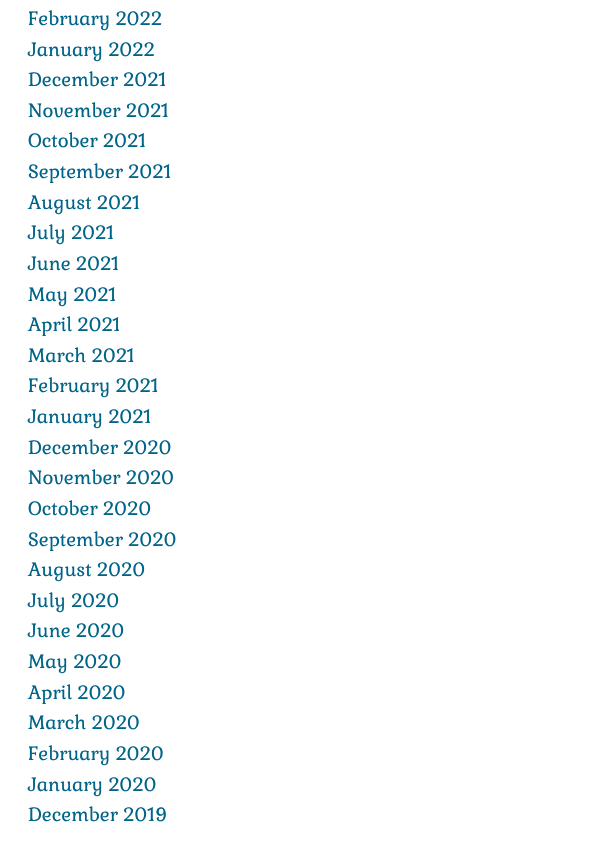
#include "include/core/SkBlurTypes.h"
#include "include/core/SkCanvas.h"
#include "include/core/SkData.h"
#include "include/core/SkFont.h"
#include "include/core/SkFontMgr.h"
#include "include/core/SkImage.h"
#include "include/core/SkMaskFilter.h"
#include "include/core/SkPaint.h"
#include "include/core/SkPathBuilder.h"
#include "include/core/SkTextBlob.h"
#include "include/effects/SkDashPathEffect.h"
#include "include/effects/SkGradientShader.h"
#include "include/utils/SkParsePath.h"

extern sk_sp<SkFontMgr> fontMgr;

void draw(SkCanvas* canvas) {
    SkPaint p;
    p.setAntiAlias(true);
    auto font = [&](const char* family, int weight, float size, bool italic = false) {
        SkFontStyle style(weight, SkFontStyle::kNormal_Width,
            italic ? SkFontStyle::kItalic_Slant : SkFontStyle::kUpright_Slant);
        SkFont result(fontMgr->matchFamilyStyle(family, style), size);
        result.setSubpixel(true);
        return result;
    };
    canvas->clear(0xFFFFFFFF);
    auto font1 = font("Gabriela", 400, 18.75f);
    p.setColor(0xFF006489);
    {
        const struct { const char* s; float x, y; } items[] = {
            {"February 2022", 28, 25},
            {"January 2022", 28, 56},
            {"December 2021", 28, 86},
            {"November 2021", 28, 117},
            {"October 2021", 28, 147},
            {"September 2021", 28, 178},
            {"August 2021", 28, 209},
            {"July 2021", 28, 239},
            {"June 2021", 28, 270},
            {"May 2021", 28, 301},
            {"April 2021", 28, 331},
            {"March 2021", 28, 362},
            {"February 2021", 28, 392},
            {"January 2021", 28, 423},
            {"December 2020", 28, 454},
            {"November 2020", 28, 484},
            {"October 2020", 28, 515},
            {"September 2020", 28, 546},
            {"August 2020", 28, 576},
            {"July 2020", 28, 607},
            {"June 2020", 28, 637},
            {"May 2020", 28, 668},
            {"April 2020", 28, 699},
            {"March 2020", 28, 729},
            {"February 2020", 28, 760},
            {"January 2020", 28, 791},
            {"December 2019", 28, 821},
        };
        for (auto [s, x, y] : items) {
            canvas->drawString(s, x, y, font1, p);
        }
    }
}
